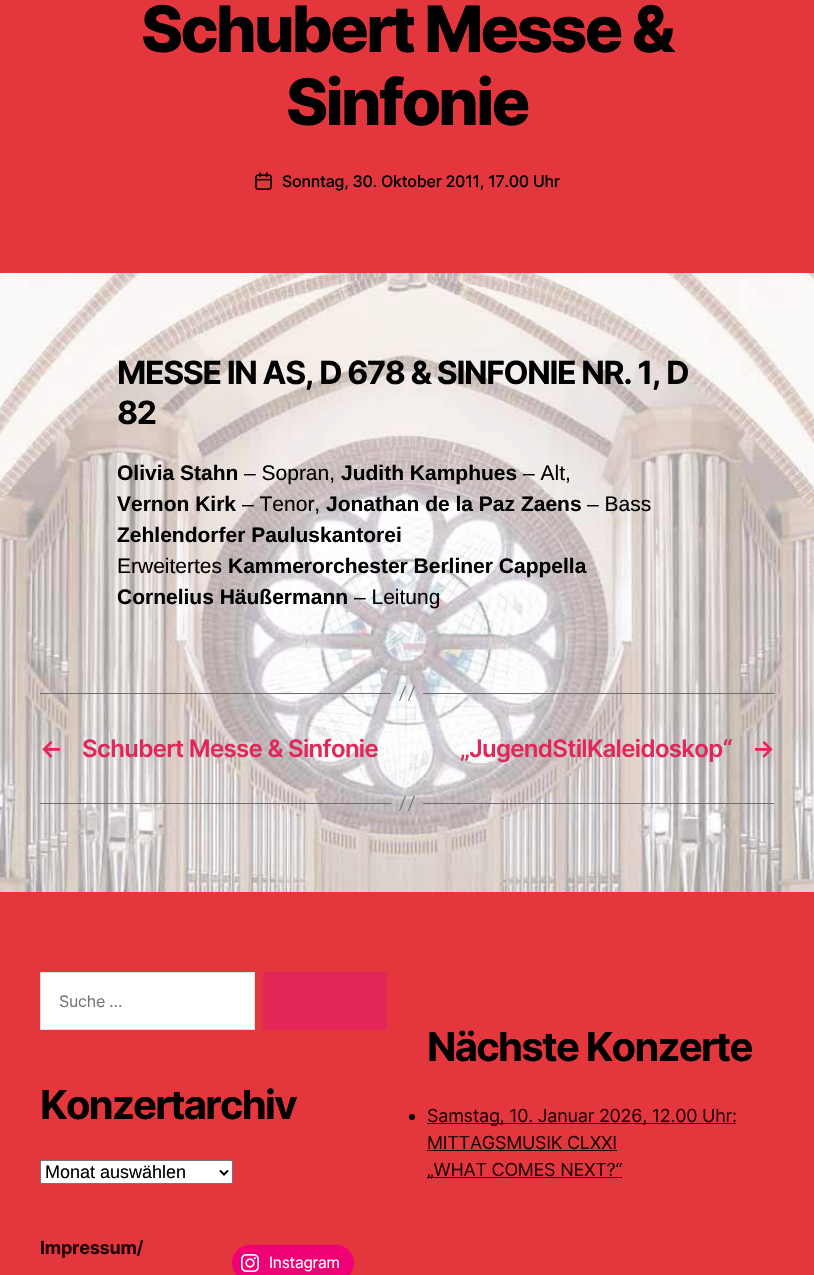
#include "include/core/SkBlurTypes.h"
#include "include/core/SkCanvas.h"
#include "include/core/SkData.h"
#include "include/core/SkFont.h"
#include "include/core/SkFontMgr.h"
#include "include/core/SkImage.h"
#include "include/core/SkMaskFilter.h"
#include "include/core/SkPaint.h"
#include "include/core/SkPathBuilder.h"
#include "include/core/SkTextBlob.h"
#include "include/effects/SkDashPathEffect.h"
#include "include/effects/SkGradientShader.h"
#include "include/utils/SkParsePath.h"

extern sk_sp<SkFontMgr> fontMgr;

void draw(SkCanvas* canvas) {
    SkPaint p;
    p.setAntiAlias(true);
    auto font = [&](const char* family, int weight, float size, bool italic = false) {
        SkFontStyle style(weight, SkFontStyle::kNormal_Width,
            italic ? SkFontStyle::kItalic_Slant : SkFontStyle::kUpright_Slant);
        SkFont result(fontMgr->matchFamilyStyle(family, style), size);
        result.setSubpixel(true);
        return result;
    };
    auto drawTracked = [&](const char* s, float x, float y, const SkFont& font, const SkPaint& ink, float letter, float word) {
        std::vector<SkGlyphID> glyphs(font.countText(s, strlen(s), SkTextEncoding::kUTF8));
        std::vector<float> xs(glyphs.size());
        font.textToGlyphs(s, strlen(s), SkTextEncoding::kUTF8, glyphs);
        font.getXPos(glyphs, xs, x);
        float extra = 0;
        for (size_t i = 0; i < glyphs.size(); i++) {
            xs[i] += extra;
            extra += letter + word * (glyphs[i] == font.unicharToGlyph(' '));
        }
        canvas->drawTextBlob(SkTextBlob::MakeFromPosHGlyphs(glyphs, xs, y, font), 0, 0, ink);
    };
    auto drawPhoto = [&](const char* path, float l, float t, float r, float b) {
        auto image = SkImages::DeferredFromEncodedData(SkData::MakeFromFileName(path));
        canvas->drawImageRect(image, SkRect::MakeLTRB(l, t, r, b), SkSamplingOptions());
    };
    canvas->clear(0xFFFFFFFF);
    drawPhoto("media/1.png", 0, 273, 814, 892);
    p.setColor(0xFFE3373D);
    canvas->drawRect(SkRect::MakeLTRB(0, 0, 814, 273), p);
    auto font1 = font("Inter", 800, 64);
    p.setColor(0xFF000000);
    drawTracked("Schubert Messe &", 141, 52, font1, p, -2.7f, 0);
    drawTracked("Sinfonie", 286, 125, font1, p, -2.7f, 0);
    drawPhoto("media/2.png", 255, 172, 272, 190);
    auto font2 = font("Inter", 500, 16);
    drawTracked("Sonntag, 30. Oktober 2011, 17.00 Uhr", 282, 187, font2, p, -0.25f, 0);
    auto font3 = font("Inter", 700, 32);
    drawTracked("MESSE IN AS, D 678 & SINFONIE NR. 1, D", 117, 384, font3, p, -1.35f, 0);
    drawTracked("82", 117, 424, font3, p, -1.35f, 0);
    auto font4 = font("Liberation Sans", 700, 21);
    canvas->drawString("Olivia Stahn", 117, 480, font4, p);
    auto font5 = font("Liberation Sans", 400, 21);
    canvas->drawString("– Sopran,", 244, 480, font5, p);
    canvas->drawString("Judith Kamphues", 341, 480, font4, p);
    canvas->drawString("– Alt,", 523, 480, font5, p);
    canvas->drawString("Vernon Kirk", 117, 511, font4, p);
    canvas->drawString("– Tenor,", 242, 511, font5, p);
    canvas->drawString("Jonathan de la Paz Zaens", 326, 511, font4, p);
    canvas->drawString("– Bass", 587, 511, font5, p);
    canvas->drawString("Zehlendorfer Pauluskantorei", 117, 542, font4, p);
    canvas->drawString("Erweitertes", 117, 573, font5, p);
    canvas->drawString("Kammerorchester Berliner Cappella", 228, 573, font4, p);
    canvas->drawString("Cornelius Häußermann", 117, 604, font4, p);
    canvas->drawString("– Leitung", 354, 604, font5, p);
    p.setColor(0xFF6D6D6D);
    canvas->drawRect(SkRect::MakeLTRB(423, 693, 774, 694), p);
    canvas->drawRect(SkRect::MakeLTRB(40, 693, 391, 694), p);
    canvas->drawPath(SkPathBuilder().moveTo(405, 685.5f).lineTo(406, 686).lineTo(400, 701).lineTo(399, 700.5f).close().moveTo(414, 685.5f).lineTo(415, 686).lineTo(409, 701).lineTo(408, 700.5f).close().detach(), p);
    auto font6 = font("Inter", 600, 24);
    p.setColor(0xFFE22658);
    {
        const struct { const char* s; float x, y; } items[] = {
            {"←", 40, 757},
            {"Schubert Messe & Sinfonie", 82, 757},
            {"„JugendStilKaleidoskop“", 460, 757},
            {"→", 752, 757},
        };
        for (auto [s, x, y] : items) {
            drawTracked(s, x, y, font6, p, -0.65f, 0);
        }
    }
    p.setColor(0xFF6D6D6D);
    canvas->drawRect(SkRect::MakeLTRB(423, 803, 774, 804), p);
    canvas->drawRect(SkRect::MakeLTRB(40, 803, 391, 804), p);
    canvas->drawPath(SkPathBuilder().moveTo(405, 795.5f).lineTo(406, 796).lineTo(400, 811).lineTo(399, 810.5f).close().moveTo(414, 795.5f).lineTo(415, 796).lineTo(409, 811).lineTo(408, 810.5f).close().detach(), p);
    p.setColor(0xFFE3373D);
    canvas->drawRect(SkRect::MakeLTRB(0, 892, 814, 1275), p);
    p.setColor(0xFFFFFFFF);
    canvas->drawRect(SkRect::MakeLTRB(40.5f, 972.5f, 254.5f, 1029.5f), p);
    p.setStyle(SkPaint::kStroke_Style);
    p.setStrokeWidth(1);
    p.setColor(0xFFDEDFDF);
    canvas->drawRect(SkRect::MakeLTRB(40.5f, 972.5f, 254.5f, 1029.5f), p);
    auto font7 = font("Inter", 400, 16);
    p.setStyle(SkPaint::kFill_Style);
    p.setColor(0xFF757575);
    drawTracked("Suche …", 59, 1007, font7, p, -0.25f, 0);
    p.setColor(0xFFE22658);
    canvas->drawRect(SkRect::MakeLTRB(263, 972, 387, 1030), p);
    auto font8 = font("Inter", 700, 40);
    p.setColor(0xFF000000);
    drawTracked("Konzertarchiv", 40, 1119, font8, p, -1.7f, 0);
    p.setColor(0xFFFFFFFF);
    canvas->drawRoundRect(SkRect::MakeLTRB(40.5f, 1160.5f, 232.5f, 1183.5f), 1.5f, 1.5f, p);
    p.setStyle(SkPaint::kStroke_Style);
    p.setColor(0xFF767676);
    canvas->drawRoundRect(SkRect::MakeLTRB(40.5f, 1160.5f, 232.5f, 1183.5f), 1.5f, 1.5f, p);
    p.setStrokeWidth(2);
    p.setColor(0xFF000000);
    canvas->drawPath(SkPathBuilder().moveTo(220, 1170.5f).lineTo(224, 1174.5f).lineTo(228, 1170.5f).detach(), p);
    auto font9 = font("Liberation Sans", 400, 18);
    p.setStyle(SkPaint::kFill_Style);
    canvas->drawString("Monat auswählen", 45, 1178, font9, p);
    auto font10 = font("Inter", 700, 18);
    p.setColor(0xFF230007);
    drawTracked("Impressum/", 40, 1254, font10, p, -0.25f, 0);
    p.setColor(0xFFF00075);
    canvas->drawRoundRect(SkRect::MakeLTRB(232, 1245, 354, 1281), 18, 18, p);
    drawPhoto("media/3.png", 241, 1254, 259, 1272);
    auto font11 = font("Inter", 400, 15.5f);
    p.setColor(0xFFFFFFFF);
    drawTracked("Instagram", 269, 1268, font11, p, -0.25f, 0);
    p.setColor(0xFF000000);
    drawTracked("Nächste Konzerte", 427, 1061, font8, p, -1.7f, 0);
    canvas->drawCircle(412, 1117, 3, p);
    p.setColor(0xFF230007);
    canvas->drawRect(SkRect::MakeLTRB(427, 1123, 736, 1124), p);
    auto font12 = font("Inter", 400, 18);
    drawTracked("Samstag, 10. Januar 2026, 12.00 Uhr:", 427, 1122, font12, p, -0.25f, 0);
    drawTracked("MITTAGSMUSIK CLXXI", 427, 1149, font12, p, -0.25f, 0);
    canvas->drawRect(SkRect::MakeLTRB(427, 1150, 617, 1151), p);
    canvas->drawRect(SkRect::MakeLTRB(427, 1177, 622, 1178), p);
    drawTracked("„WHAT COMES NEXT?“", 427, 1176, font12, p, -0.25f, 0);
}
